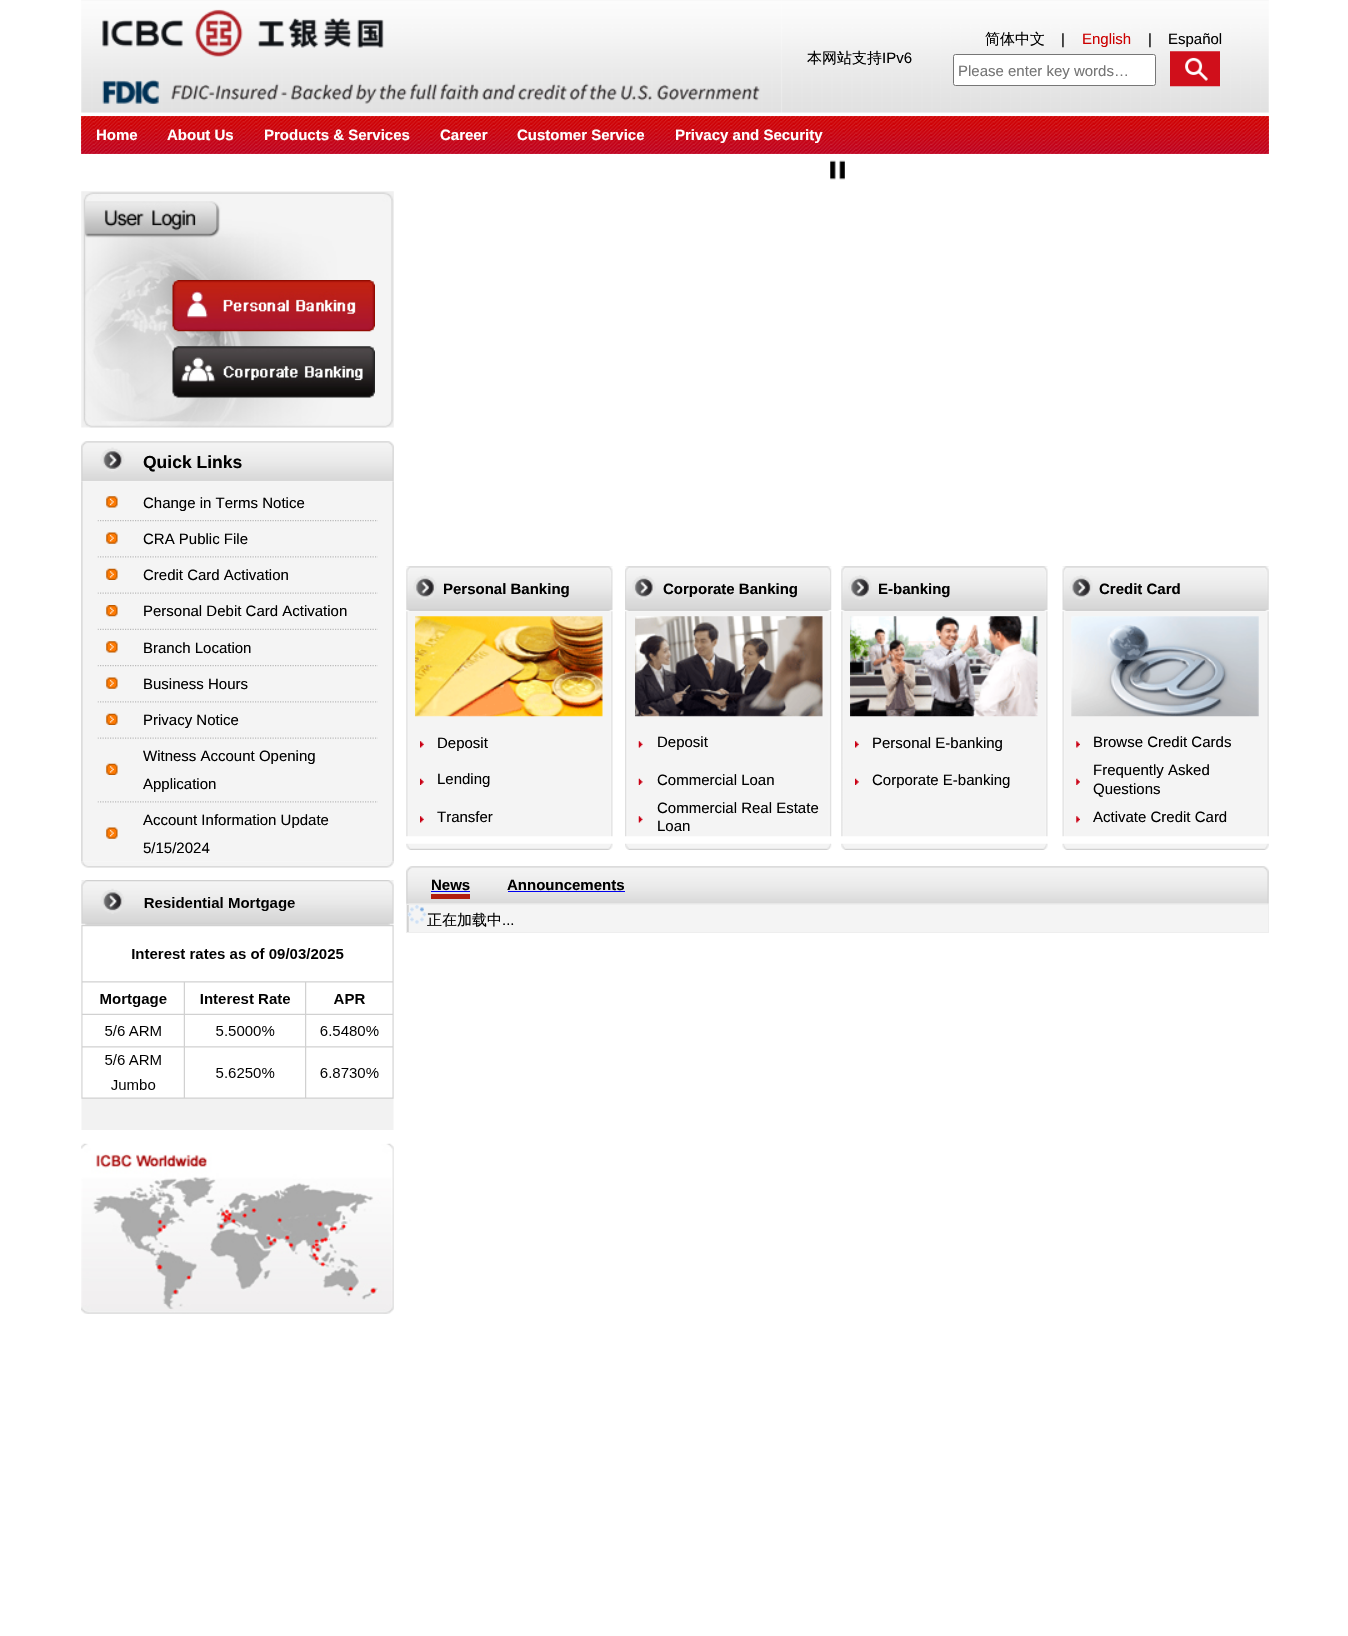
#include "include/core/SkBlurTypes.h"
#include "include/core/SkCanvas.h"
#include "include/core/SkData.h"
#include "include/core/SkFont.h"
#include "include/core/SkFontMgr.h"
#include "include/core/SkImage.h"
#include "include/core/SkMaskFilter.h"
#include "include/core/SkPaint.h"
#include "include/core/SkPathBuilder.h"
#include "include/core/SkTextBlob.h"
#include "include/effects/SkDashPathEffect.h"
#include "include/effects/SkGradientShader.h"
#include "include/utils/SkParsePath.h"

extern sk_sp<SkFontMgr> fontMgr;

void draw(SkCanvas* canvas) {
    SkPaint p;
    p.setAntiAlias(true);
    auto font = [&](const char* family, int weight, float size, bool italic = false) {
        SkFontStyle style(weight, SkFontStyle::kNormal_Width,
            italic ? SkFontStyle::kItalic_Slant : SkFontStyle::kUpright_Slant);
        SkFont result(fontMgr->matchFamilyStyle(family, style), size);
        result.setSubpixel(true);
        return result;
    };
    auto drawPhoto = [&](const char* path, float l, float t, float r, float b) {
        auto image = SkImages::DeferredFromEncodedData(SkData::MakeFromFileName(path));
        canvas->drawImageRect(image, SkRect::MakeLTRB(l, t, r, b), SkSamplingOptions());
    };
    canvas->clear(0xFFFFFFFF);
    drawPhoto("media/1.png", 81, 0, 782, 113);
    drawPhoto("media/2.png", 102, 9, 760, 104);
    drawPhoto("media/3.png", 781, 0, 940, 113);
    auto font1 = font("WenQuanYi Zen Hei", 500, 15);
    p.setColor(0xFF000000);
    canvas->drawString("本网站支持", 807, 63, font1, p);
    auto font2 = font("Liberation Sans", 400, 15);
    canvas->drawString("IPv6", 882, 63, font2, p);
    drawPhoto("media/4.png", 940, 0, 1269, 113);
    canvas->drawString("简体中文", 985, 44, font1, p);
    canvas->drawString("|", 1061, 44, font2, p);
    p.setColor(0xFFCC0000);
    canvas->drawString("English", 1082, 44, font2, p);
    p.setColor(0xFF000000);
    canvas->drawString("|", 1148, 44, font2, p);
    canvas->drawString("Español", 1168, 44, font2, p);
    p.setColor(0xFFFFFFFF);
    canvas->drawRoundRect(SkRect::MakeLTRB(953.5f, 54.5f, 1155.5f, 85.5f), 2, 2, p);
    p.setStyle(SkPaint::kStroke_Style);
    p.setStrokeWidth(1);
    p.setColor(0xFF767676);
    canvas->drawRoundRect(SkRect::MakeLTRB(953.5f, 54.5f, 1155.5f, 85.5f), 2, 2, p);
    p.setStyle(SkPaint::kFill_Style);
    p.setColor(0xFF757575);
    canvas->drawString("Please enter key words…", 958, 76, font2, p);
    drawPhoto("media/5.png", 1170, 51, 1220, 87);
    drawPhoto("media/6.png", 81, 116, 1269, 154);
    drawPhoto("media/7.png", 81, 116, 1269, 154);
    auto font3 = font("Liberation Sans", 700, 15);
    p.setColor(0xFFFFFFFF);
    {
        const struct { const char* s; float x, y; } items[] = {
            {"Home", 96, 140},
            {"About Us", 167, 140},
            {"Products & Services", 264, 140},
            {"Career", 440, 140},
            {"Customer Service", 517, 140},
            {"Privacy and Security", 675, 140},
        };
        for (auto [s, x, y] : items) {
            canvas->drawString(s, x, y, font3, p);
        }
    }
    drawPhoto("media/8.png", 81, 191, 394, 428);
    drawPhoto("media/9.png", 172, 280, 375, 332);
    drawPhoto("media/10.png", 172, 346, 375, 398);
    drawPhoto("media/11.png", 81, 441, 394, 482);
    drawPhoto("media/12.png", 100, 447, 125, 472);
    auto font4 = font("Liberation Sans", 700, 17.5f);
    p.setColor(0xFF000000);
    canvas->drawString("Quick Links", 143, 468, font4, p);
    drawPhoto("media/13.png", 81, 481, 394, 862);
    drawPhoto("media/14.png", 106, 496, 118, 508);
    canvas->drawString("Change in Terms Notice", 143, 508, font2, p);
    drawPhoto("media/15.png", 97, 520, 378, 522);
    drawPhoto("media/16.png", 106, 532, 118, 544);
    canvas->drawString("CRA Public File", 143, 544, font2, p);
    drawPhoto("media/17.png", 97, 556, 378, 558);
    drawPhoto("media/18.png", 106, 568, 118, 580);
    canvas->drawString("Credit Card Activation", 143, 580, font2, p);
    drawPhoto("media/19.png", 97, 592, 378, 594);
    drawPhoto("media/20.png", 106, 605, 118, 617);
    canvas->drawString("Personal Debit Card Activation", 143, 616, font2, p);
    drawPhoto("media/21.png", 97, 628, 378, 630);
    drawPhoto("media/14.png", 106, 641, 118, 653);
    canvas->drawString("Branch Location", 143, 653, font2, p);
    drawPhoto("media/22.png", 97, 665, 378, 667);
    drawPhoto("media/16.png", 106, 677, 118, 689);
    canvas->drawString("Business Hours", 143, 689, font2, p);
    drawPhoto("media/17.png", 97, 701, 378, 703);
    drawPhoto("media/18.png", 106, 713, 118, 725);
    canvas->drawString("Privacy Notice", 143, 725, font2, p);
    drawPhoto("media/19.png", 97, 737, 378, 739);
    drawPhoto("media/18.png", 106, 763, 118, 775);
    canvas->drawString("Witness Account Opening", 143, 761, font2, p);
    canvas->drawString("Application", 143, 789, font2, p);
    drawPhoto("media/17.png", 97, 801, 378, 803);
    drawPhoto("media/16.png", 106, 827, 118, 839);
    canvas->drawString("Account Information Update", 143, 825, font2, p);
    canvas->drawString("5/15/2024", 143, 853, font2, p);
    drawPhoto("media/23.png", 81, 861, 394, 868);
    drawPhoto("media/24.png", 81, 880, 394, 1130);
    drawPhoto("media/25.png", 81, 1143, 394, 1314);
    drawPhoto("media/26.png", 830, 160, 845, 180);
    drawPhoto("media/27.png", 406, 566, 613, 612);
    drawPhoto("media/28.png", 413, 575, 437, 600);
    canvas->drawString("Personal Banking", 443, 594, font3, p);
    drawPhoto("media/29.png", 406, 611, 613, 837);
    drawPhoto("media/30.png", 415, 616, 603, 717);
    drawPhoto("media/31.png", 420, 741, 424, 748);
    canvas->drawString("Deposit", 437, 748, font2, p);
    drawPhoto("media/32.png", 420, 778, 424, 785);
    canvas->drawString("Lending", 437, 784, font2, p);
    drawPhoto("media/31.png", 420, 816, 424, 823);
    canvas->drawString("Transfer", 437, 822, font2, p);
    drawPhoto("media/33.png", 406, 843, 613, 850);
    drawPhoto("media/34.png", 625, 566, 832, 612);
    drawPhoto("media/35.png", 632, 575, 656, 600);
    canvas->drawString("Corporate Banking", 663, 594, font3, p);
    drawPhoto("media/36.png", 625, 611, 832, 837);
    drawPhoto("media/37.png", 635, 616, 823, 717);
    drawPhoto("media/38.png", 638, 741, 643, 748);
    canvas->drawString("Deposit", 657, 747, font2, p);
    drawPhoto("media/39.png", 638, 778, 643, 785);
    canvas->drawString("Commercial Loan", 657, 785, font2, p);
    drawPhoto("media/38.png", 638, 816, 643, 823);
    canvas->drawString("Commercial Real Estate", 657, 813, font2, p);
    canvas->drawString("Loan", 657, 831, font2, p);
    drawPhoto("media/40.png", 625, 843, 832, 850);
    drawPhoto("media/41.png", 841, 566, 1048, 612);
    drawPhoto("media/42.png", 848, 575, 872, 600);
    canvas->drawString("E-banking", 878, 594, font3, p);
    drawPhoto("media/43.png", 841, 611, 1048, 837);
    drawPhoto("media/44.png", 850, 616, 1038, 717);
    drawPhoto("media/45.png", 855, 741, 859, 748);
    canvas->drawString("Personal E-banking", 872, 748, font2, p);
    drawPhoto("media/46.png", 855, 778, 859, 785);
    canvas->drawString("Corporate E-banking", 872, 785, font2, p);
    drawPhoto("media/33.png", 841, 843, 1048, 850);
    drawPhoto("media/47.png", 1062, 566, 1269, 612);
    drawPhoto("media/48.png", 1069, 575, 1093, 600);
    canvas->drawString("Credit Card", 1099, 594, font3, p);
    drawPhoto("media/49.png", 1062, 611, 1269, 837);
    drawPhoto("media/50.png", 1071, 616, 1259, 717);
    drawPhoto("media/51.png", 1076, 741, 1080, 748);
    canvas->drawString("Browse Credit Cards", 1093, 747, font2, p);
    drawPhoto("media/52.png", 1076, 778, 1080, 785);
    canvas->drawString("Frequently Asked", 1093, 775, font2, p);
    canvas->drawString("Questions", 1093, 794, font2, p);
    drawPhoto("media/51.png", 1076, 816, 1080, 823);
    canvas->drawString("Activate Credit Card", 1093, 822, font2, p);
    drawPhoto("media/53.png", 1062, 843, 1269, 850);
    drawPhoto("media/54.png", 406, 866, 1269, 904);
    canvas->drawString("News", 431, 890, font3, p);
    p.setColor(0xFFB21E0F);
    canvas->drawRect(SkRect::MakeLTRB(431, 894, 470, 899), p);
    p.setColor(0xFF0000EE);
    canvas->drawRect(SkRect::MakeLTRB(431, 891, 470, 892), p);
    p.setColor(0xFF000000);
    canvas->drawString("Announcements", 507, 890, font3, p);
    p.setColor(0xFF0000EE);
    canvas->drawRect(SkRect::MakeLTRB(508, 891, 625, 892), p);
    drawPhoto("media/55.png", 406, 903, 1269, 932);
    p.setStyle(SkPaint::kStroke_Style);
    p.setColor(0xFFEEEEEE);
    canvas->drawRect(SkRect::MakeLTRB(406.5f, 904.5f, 1268.5f, 932.5f), p);
    drawPhoto("media/56.png", 407, 905, 427, 924);
    p.setStyle(SkPaint::kFill_Style);
    p.setColor(0xFF000000);
    canvas->drawString("正在加载中", 427, 925, font1, p);
    canvas->drawString("...", 502, 925, font2, p);
}
